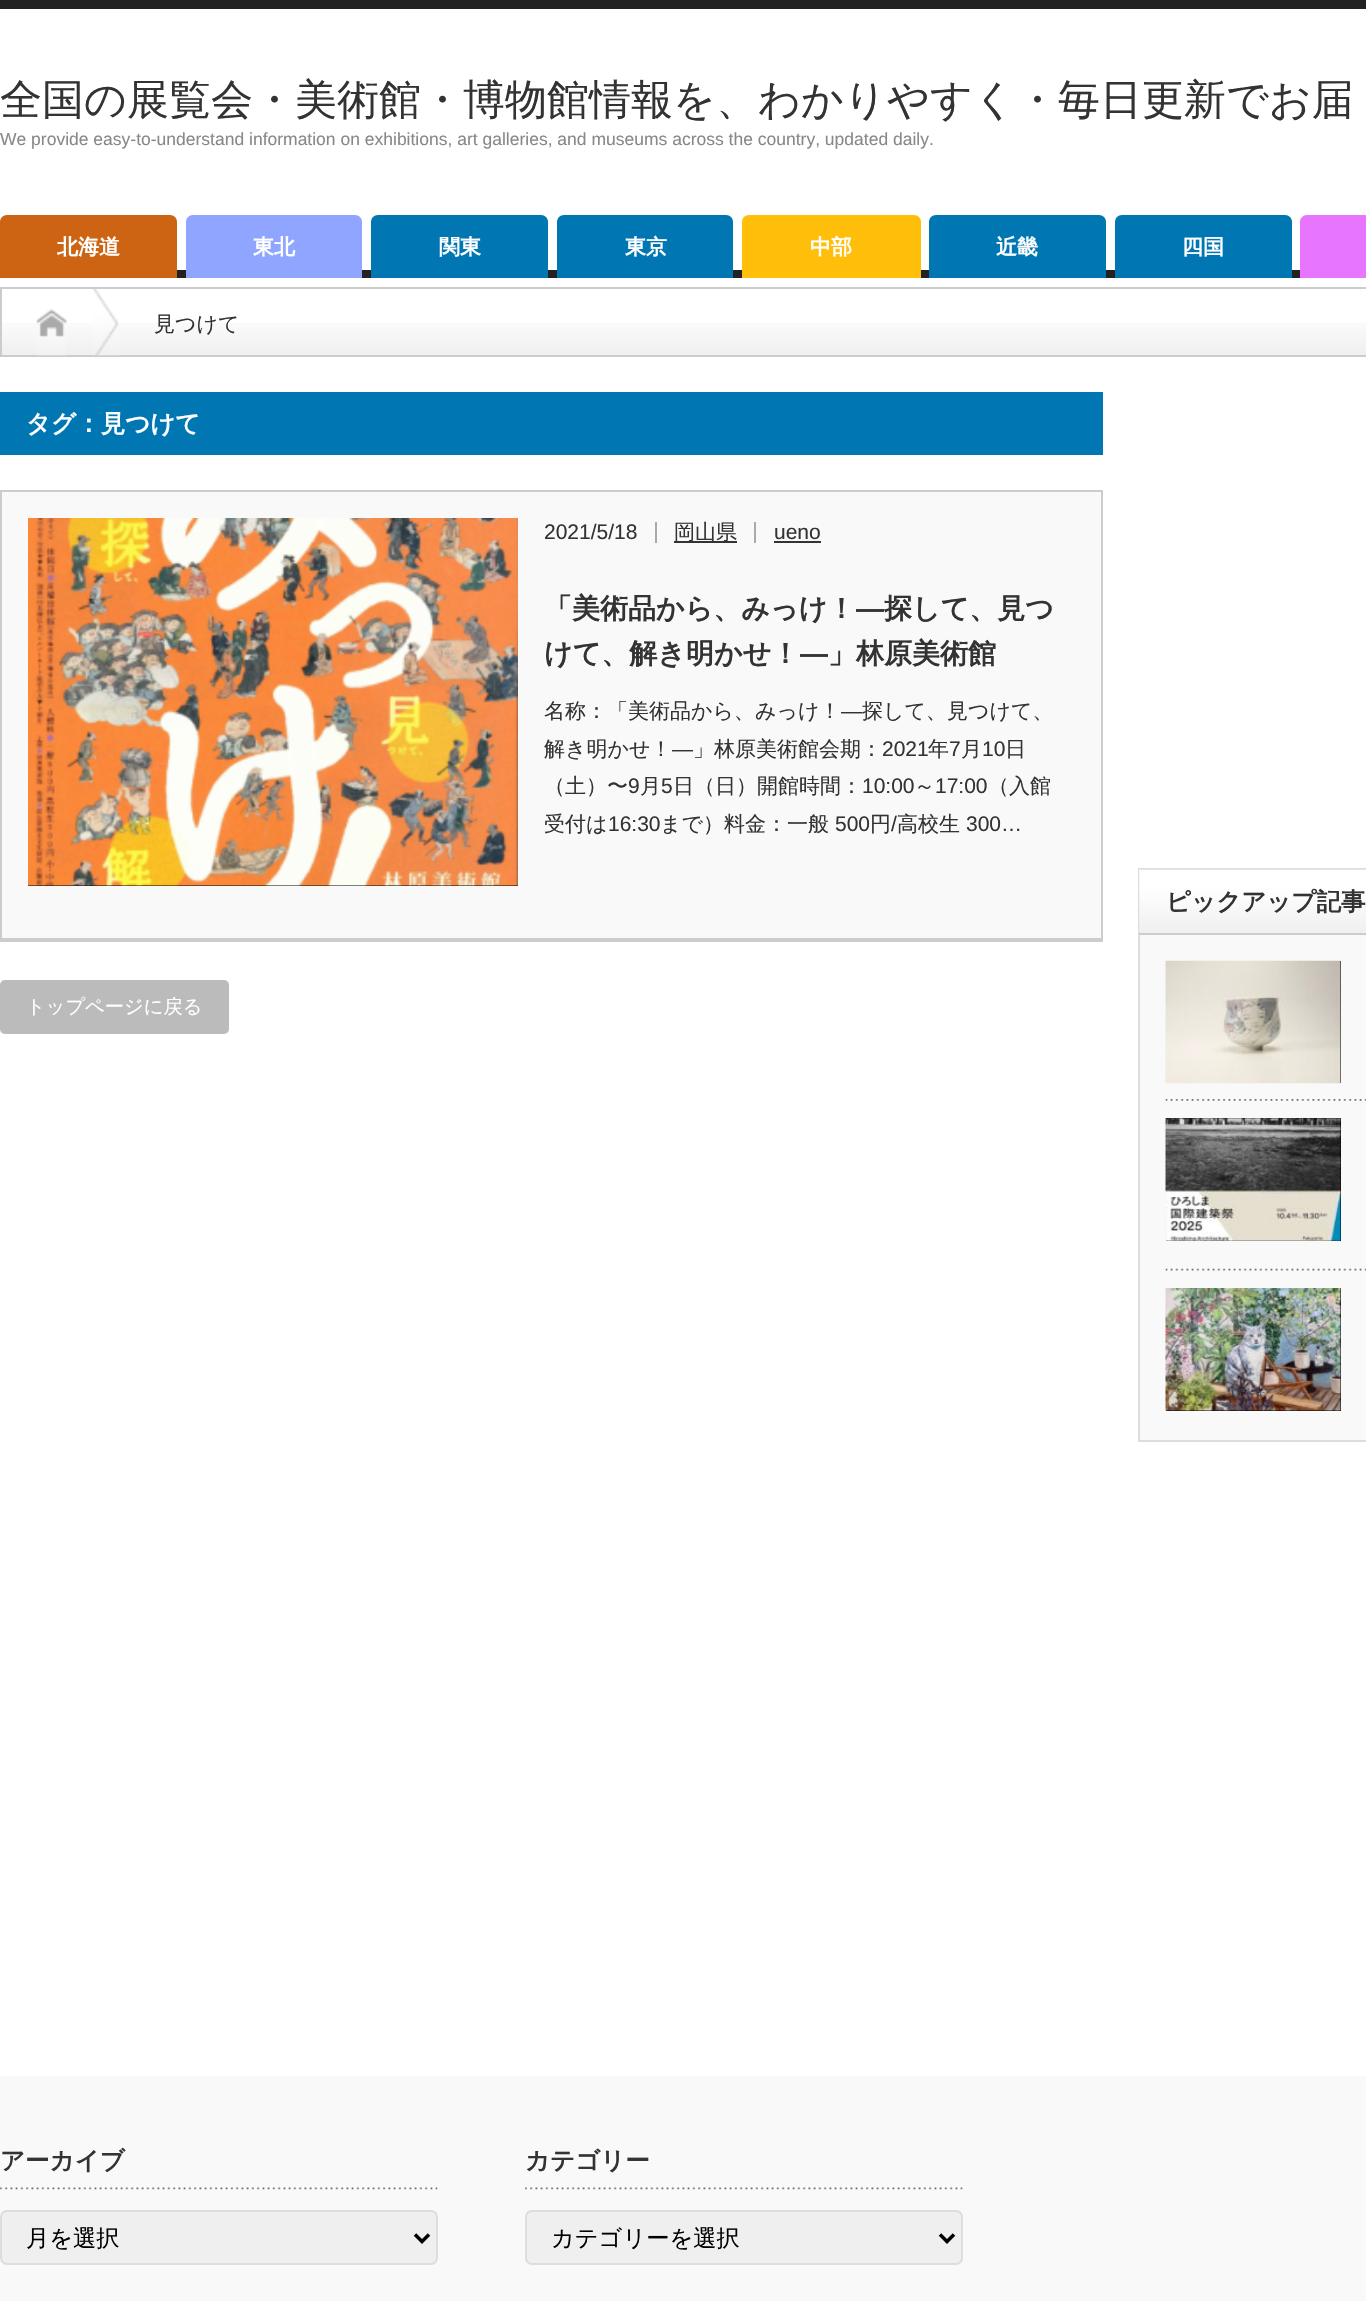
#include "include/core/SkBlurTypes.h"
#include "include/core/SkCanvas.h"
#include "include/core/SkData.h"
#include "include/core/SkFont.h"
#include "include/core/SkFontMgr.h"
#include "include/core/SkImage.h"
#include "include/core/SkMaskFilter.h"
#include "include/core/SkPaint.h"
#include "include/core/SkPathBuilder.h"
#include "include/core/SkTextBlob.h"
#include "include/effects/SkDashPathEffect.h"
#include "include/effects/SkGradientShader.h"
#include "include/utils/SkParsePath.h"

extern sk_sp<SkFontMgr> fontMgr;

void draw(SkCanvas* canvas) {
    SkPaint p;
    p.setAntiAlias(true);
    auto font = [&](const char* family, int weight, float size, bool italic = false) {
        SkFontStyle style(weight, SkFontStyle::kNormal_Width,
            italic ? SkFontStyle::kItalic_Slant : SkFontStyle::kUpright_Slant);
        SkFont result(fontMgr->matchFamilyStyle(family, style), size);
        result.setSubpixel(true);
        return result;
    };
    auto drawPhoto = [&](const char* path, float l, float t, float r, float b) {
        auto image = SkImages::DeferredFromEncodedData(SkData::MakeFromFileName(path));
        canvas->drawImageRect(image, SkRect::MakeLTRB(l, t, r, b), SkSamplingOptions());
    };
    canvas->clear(0xFFFFFFFF);
    p.setColor(0xFF222222);
    canvas->drawRect(SkRect::MakeLTRB(0, 0, 1366, 9), p);
    auto font1 = font("WenQuanYi Zen Hei", 500, 42);
    p.setColor(0xFF333333);
    canvas->drawString("全国の展覧会・美術館・博物館情報を、わかりやすく・毎日更新でお届", 0, 114, font1, p);
    auto font2 = font("Liberation Sans", 400, 17.5f);
    p.setColor(0xFF888888);
    canvas->drawString("We provide easy-to-understand information on exhibitions, art galleries, and museums across the country, updated daily.", 0, 145, font2, p);
    p.setColor(0xFF222222);
    canvas->drawRect(SkRect::MakeLTRB(177, 270, 1300, 278), p);
    p.setColor(0xFFCC6414);
    canvas->drawPath(SkPathBuilder().moveTo(7, 215).lineTo(170, 215).cubicTo(174, 215, 177, 218, 177, 222).lineTo(177, 278).lineTo(0, 278).lineTo(0, 222).cubicTo(0, 218, 3, 215, 7, 215).close().detach(), p);
    auto font3 = font("WenQuanYi Zen Hei", 700, 21);
    p.setColor(0xFFFFFFFF);
    canvas->drawString("北海道", 57, 254, font3, p);
    p.setColor(0xFF8FA5FF);
    canvas->drawPath(SkPathBuilder().moveTo(193, 215).lineTo(355, 215).cubicTo(359, 215, 362, 218, 362, 222).lineTo(362, 278).lineTo(186, 278).lineTo(186, 222).cubicTo(186, 218, 189, 215, 193, 215).close().detach(), p);
    p.setColor(0xFFFFFFFF);
    canvas->drawString("東北", 253, 254, font3, p);
    p.setColor(0xFF0077B3);
    canvas->drawPath(SkPathBuilder().moveTo(378, 215).lineTo(541, 215).cubicTo(545, 215, 548, 218, 548, 222).lineTo(548, 278).lineTo(371, 278).lineTo(371, 222).cubicTo(371, 218, 374, 215, 378, 215).close().detach(), p);
    p.setColor(0xFFFFFFFF);
    canvas->drawString("関東", 439, 254, font3, p);
    p.setColor(0xFF0077B3);
    canvas->drawPath(SkPathBuilder().moveTo(564, 215).lineTo(726, 215).cubicTo(730, 215, 733, 218, 733, 222).lineTo(733, 278).lineTo(557, 278).lineTo(557, 222).cubicTo(557, 218, 560, 215, 564, 215).close().detach(), p);
    p.setColor(0xFFFFFFFF);
    canvas->drawString("東京", 625, 254, font3, p);
    p.setColor(0xFFFFBE0A);
    canvas->drawPath(SkPathBuilder().moveTo(749, 215).lineTo(914, 215).cubicTo(918, 215, 921, 218, 921, 222).lineTo(921, 278).lineTo(742, 278).lineTo(742, 222).cubicTo(742, 218, 745, 215, 749, 215).close().detach(), p);
    p.setColor(0xFFFFFFFF);
    canvas->drawString("中部", 810, 254, font3, p);
    p.setColor(0xFF0077B3);
    canvas->drawPath(SkPathBuilder().moveTo(936, 215).lineTo(1099, 215).cubicTo(1103, 215, 1106, 218, 1106, 222).lineTo(1106, 278).lineTo(929, 278).lineTo(929, 222).cubicTo(929, 218, 932, 215, 936, 215).close().detach(), p);
    p.setColor(0xFFFFFFFF);
    canvas->drawString("近畿", 996, 254, font3, p);
    p.setColor(0xFF0077B3);
    canvas->drawPath(SkPathBuilder().moveTo(1122, 215).lineTo(1285, 215).cubicTo(1289, 215, 1292, 218, 1292, 222).lineTo(1292, 278).lineTo(1115, 278).lineTo(1115, 222).cubicTo(1115, 218, 1118, 215, 1122, 215).close().detach(), p);
    p.setColor(0xFFFFFFFF);
    canvas->drawString("四国", 1182, 254, font3, p);
    p.setColor(0xFFE875FF);
    canvas->drawPath(SkPathBuilder().moveTo(1307, 215).lineTo(1366, 215).cubicTo(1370, 215, 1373, 218, 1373, 222).lineTo(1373, 278).lineTo(1300, 278).lineTo(1300, 222).cubicTo(1300, 218, 1303, 215, 1307, 215).close().detach(), p);
    drawPhoto("media/1.png", 2, 323, 1366, 355);
    p.setStyle(SkPaint::kStroke_Style);
    p.setStrokeWidth(2);
    p.setColor(0xFFCCCCCC);
    canvas->drawRect(SkRect::MakeLTRB(1, 288, 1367, 356), p);
    drawPhoto("media/2.png", 92, 289, 119, 356);
    drawPhoto("media/3.png", 36, 309, 67, 356);
    auto font4 = font("WenQuanYi Zen Hei", 500, 21);
    p.setStyle(SkPaint::kFill_Style);
    p.setColor(0xFF333333);
    canvas->drawString("見つけて", 154, 331, font4, p);
    p.setColor(0xFF0077B3);
    canvas->drawRect(SkRect::MakeLTRB(0, 392, 1103, 455), p);
    auto font5 = font("WenQuanYi Zen Hei", 700, 24.5f);
    p.setColor(0xFFFFFFFF);
    canvas->drawString("タグ：見つけて", 26, 432, font5, p);
    p.setColor(0xFFF9F9F9);
    canvas->drawRect(SkRect::MakeLTRB(2, 492, 1101, 938), p);
    p.setStyle(SkPaint::kStroke_Style);
    p.setColor(0xFFCCCCCC);
    canvas->drawRect(SkRect::MakeLTRB(1, 491, 1102, 941), p);
    p.setStyle(SkPaint::kFill_Style);
    canvas->drawRect(SkRect::MakeLTRB(2, 938, 1101, 940), p);
    p.setColor(0xFF000000);
    canvas->drawRect(SkRect::MakeLTRB(28, 885, 518, 886), p);
    drawPhoto("media/4.png", 28, 518, 518, 886);
    p.setColor(0xFFAAAAAA);
    canvas->drawRect(SkRect::MakeLTRB(655, 522, 657, 543), p);
    auto font6 = font("Liberation Sans", 400, 21);
    p.setColor(0xFF333333);
    canvas->drawString("2021/5/18", 544, 539, font6, p);
    p.setColor(0xFFAAAAAA);
    canvas->drawRect(SkRect::MakeLTRB(754, 522, 756, 543), p);
    p.setColor(0xFF333333);
    canvas->drawRect(SkRect::MakeLTRB(674, 541, 737, 543), p);
    canvas->drawString("岡山県", 674, 539, font4, p);
    canvas->drawString("ueno", 774, 539, font6, p);
    canvas->drawRect(SkRect::MakeLTRB(774, 541, 821, 543), p);
    auto font7 = font("WenQuanYi Zen Hei", 700, 28);
    canvas->drawString("「美術品から、みっけ！", 544, 618, font7, p);
    auto font8 = font("Liberation Sans", 700, 28);
    canvas->drawString("―", 856, 618, font8, p);
    canvas->drawString("探して、見つ", 884, 618, font7, p);
    canvas->drawString("けて、解き明かせ！", 544, 663, font7, p);
    canvas->drawString("―", 800, 663, font8, p);
    canvas->drawString("」林原美術館", 828, 663, font7, p);
    canvas->drawString("名称：「美術品から、みっけ！", 544, 718, font4, p);
    canvas->drawString("―", 841, 718, font6, p);
    canvas->drawString("探して、見つけて、", 862, 718, font4, p);
    canvas->drawString("解き明かせ！", 544, 756, font4, p);
    canvas->drawString("―", 672, 756, font6, p);
    canvas->drawString("」林原美術館会期：", 693, 756, font4, p);
    canvas->drawString("2021", 882, 756, font6, p);
    canvas->drawString("年", 928, 756, font4, p);
    canvas->drawString("7", 949, 756, font6, p);
    canvas->drawString("月", 961, 756, font4, p);
    canvas->drawString("10", 982, 756, font6, p);
    canvas->drawString("日", 1005, 756, font4, p);
    canvas->drawString("（土）〜", 544, 793, font4, p);
    canvas->drawString("9", 628, 793, font6, p);
    canvas->drawString("月", 640, 793, font4, p);
    canvas->drawString("5", 661, 793, font6, p);
    canvas->drawString("日（日）開館時間：", 673, 793, font4, p);
    canvas->drawString("10:00", 862, 793, font6, p);
    canvas->drawString("～", 914, 793, font4, p);
    canvas->drawString("17:00", 935, 793, font6, p);
    canvas->drawString("（入館", 988, 793, font4, p);
    canvas->drawString("受付は", 544, 831, font4, p);
    canvas->drawString("16:30", 608, 831, font6, p);
    canvas->drawString("まで）料金：一般", 660, 831, font4, p);
    canvas->drawString("500", 835, 831, font6, p);
    canvas->drawString("円", 870, 831, font4, p);
    canvas->drawString("/", 891, 831, font6, p);
    canvas->drawString("高校生", 897, 831, font4, p);
    canvas->drawString("300…", 966, 831, font6, p);
    p.setColor(0xFFBBBBBB);
    canvas->drawRoundRect(SkRect::MakeLTRB(0, 980, 229, 1034), 5, 5, p);
    auto font9 = font("WenQuanYi Zen Hei", 500, 19.25f);
    p.setColor(0xFFFFFFFF);
    canvas->drawString("トップページに戻る", 26, 1013, font9, p);
    p.setColor(0xFFF9F9F9);
    canvas->drawRect(SkRect::MakeLTRB(1140, 932, 1366, 1440), p);
    p.setStyle(SkPaint::kStroke_Style);
    p.setColor(0xFFDDDDDD);
    canvas->drawRect(SkRect::MakeLTRB(1139, 869, 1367, 1441), p);
    drawPhoto("media/5.png", 1139, 869, 1366, 933);
    p.setStyle(SkPaint::kFill_Style);
    p.setColor(0xFFCCCCCC);
    canvas->drawRect(SkRect::MakeLTRB(1139, 933, 1366, 935), p);
    p.setColor(0xFF333333);
    canvas->drawString("ピックアップ記事", 1166, 910, font5, p);
    drawPhoto("media/6.png", 1165, 1099, 1366, 1101);
    p.setColor(0xFF000000);
    canvas->drawRect(SkRect::MakeLTRB(1340, 961, 1341, 1083), p);
    drawPhoto("media/7.png", 1165, 960, 1341, 1084);
    drawPhoto("media/8.png", 1165, 1268, 1366, 1271);
    canvas->drawRect(SkRect::MakeLTRB(1166, 1118, 1341, 1241), p);
    drawPhoto("media/9.png", 1165, 1118, 1341, 1241);
    canvas->drawRect(SkRect::MakeLTRB(1166, 1288, 1341, 1411), p);
    drawPhoto("media/10.png", 1165, 1288, 1341, 1411);
    p.setColor(0xFFF9F9F9);
    canvas->drawRect(SkRect::MakeLTRB(0, 2076, 1366, 2301), p);
    drawPhoto("media/11.png", 0, 2187, 438, 2190);
    p.setColor(0xFF333333);
    canvas->drawString("アーカイブ", 0, 2169, font5, p);
    p.setColor(0xFFEFEFEF);
    canvas->drawRoundRect(SkRect::MakeLTRB(1, 2211, 437, 2264), 6, 6, p);
    p.setStyle(SkPaint::kStroke_Style);
    p.setColor(0xFFDDDDDD);
    canvas->drawRoundRect(SkRect::MakeLTRB(1, 2211, 437, 2264), 6, 6, p);
    p.setStrokeWidth(3.5f);
    p.setColor(0xFF000000);
    canvas->drawPath(SkPathBuilder().moveTo(415, 2234.5f).lineTo(422, 2241.5f).lineTo(429, 2234.5f).detach(), p);
    auto font10 = font("WenQuanYi Zen Hei", 500, 23.25f);
    p.setStyle(SkPaint::kFill_Style);
    canvas->drawString("月を選択", 26, 2246, font10, p);
    drawPhoto("media/12.png", 525, 2187, 963, 2190);
    p.setColor(0xFF333333);
    canvas->drawString("カテゴリー", 525, 2169, font5, p);
    p.setColor(0xFFEFEFEF);
    canvas->drawRoundRect(SkRect::MakeLTRB(526, 2211, 962, 2264), 6, 6, p);
    p.setStyle(SkPaint::kStroke_Style);
    p.setStrokeWidth(2);
    p.setColor(0xFFDDDDDD);
    canvas->drawRoundRect(SkRect::MakeLTRB(526, 2211, 962, 2264), 6, 6, p);
    p.setStrokeWidth(3.5f);
    p.setColor(0xFF000000);
    canvas->drawPath(SkPathBuilder().moveTo(940, 2234.5f).lineTo(947, 2241.5f).lineTo(954, 2234.5f).detach(), p);
    p.setStyle(SkPaint::kFill_Style);
    canvas->drawString("カテゴリーを選択", 551, 2246, font10, p);
}
